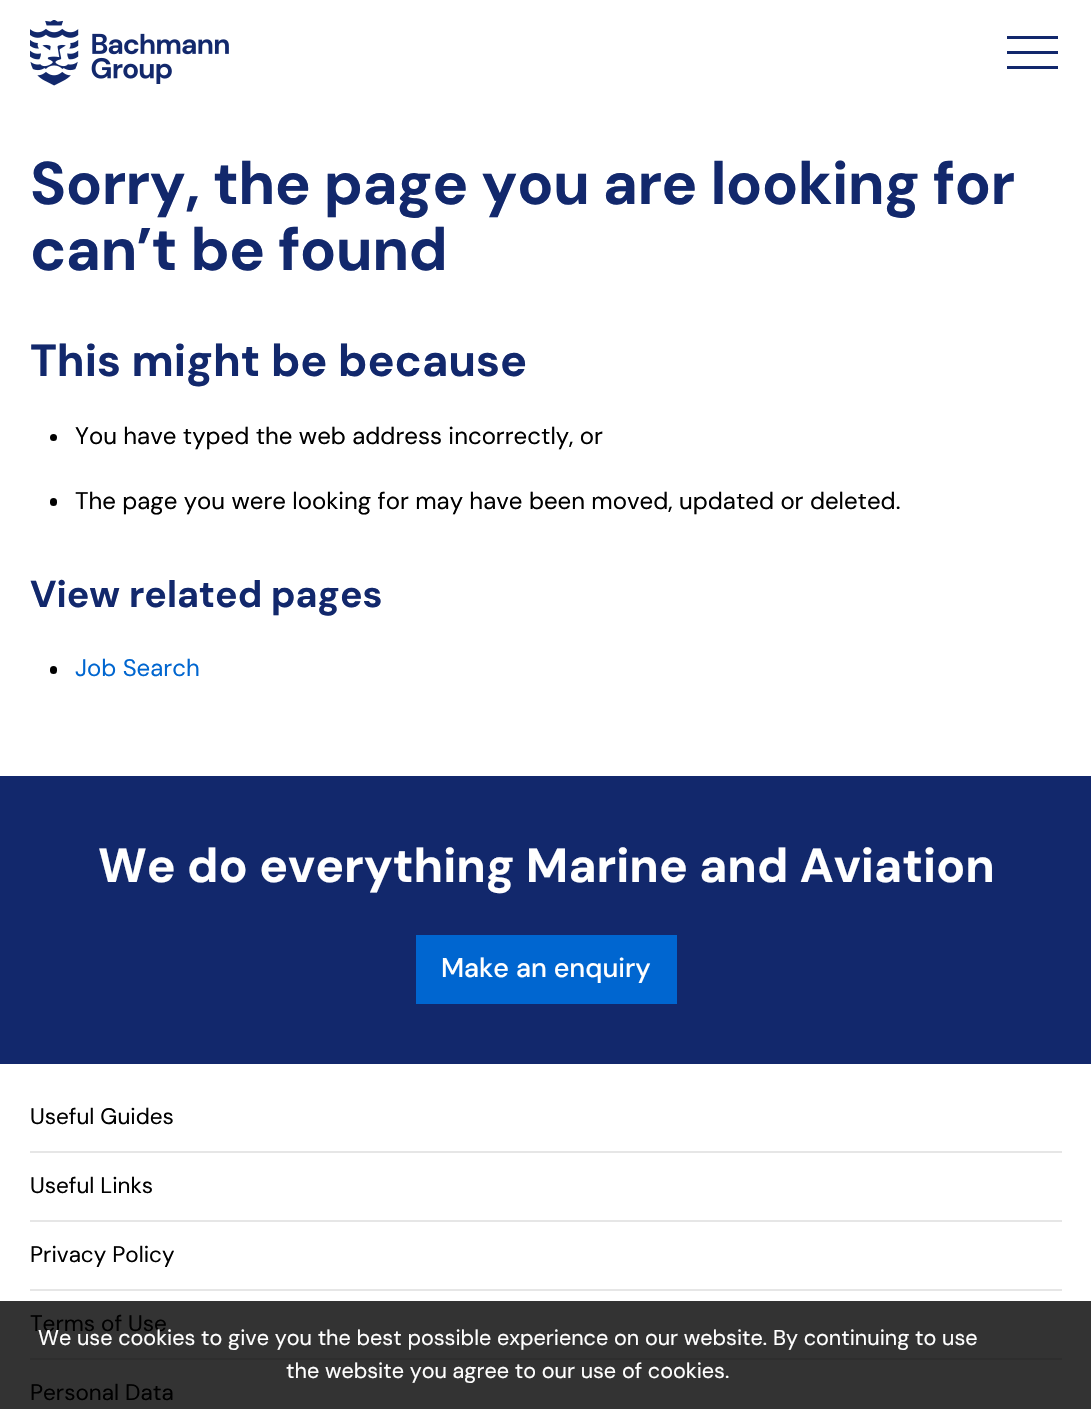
#include "include/core/SkBlurTypes.h"
#include "include/core/SkCanvas.h"
#include "include/core/SkData.h"
#include "include/core/SkFont.h"
#include "include/core/SkFontMgr.h"
#include "include/core/SkImage.h"
#include "include/core/SkMaskFilter.h"
#include "include/core/SkPaint.h"
#include "include/core/SkPathBuilder.h"
#include "include/core/SkTextBlob.h"
#include "include/effects/SkDashPathEffect.h"
#include "include/effects/SkGradientShader.h"
#include "include/utils/SkParsePath.h"

extern sk_sp<SkFontMgr> fontMgr;

void draw(SkCanvas* canvas) {
    SkPaint p;
    p.setAntiAlias(true);
    auto font = [&](const char* family, int weight, float size, bool italic = false) {
        SkFontStyle style(weight, SkFontStyle::kNormal_Width,
            italic ? SkFontStyle::kItalic_Slant : SkFontStyle::kUpright_Slant);
        SkFont result(fontMgr->matchFamilyStyle(family, style), size);
        result.setSubpixel(true);
        return result;
    };
    auto drawTracked = [&](const char* s, float x, float y, const SkFont& font, const SkPaint& ink, float letter, float word) {
        std::vector<SkGlyphID> glyphs(font.countText(s, strlen(s), SkTextEncoding::kUTF8));
        std::vector<float> xs(glyphs.size());
        font.textToGlyphs(s, strlen(s), SkTextEncoding::kUTF8, glyphs);
        font.getXPos(glyphs, xs, x);
        float extra = 0;
        for (size_t i = 0; i < glyphs.size(); i++) {
            xs[i] += extra;
            extra += letter + word * (glyphs[i] == font.unicharToGlyph(' '));
        }
        canvas->drawTextBlob(SkTextBlob::MakeFromPosHGlyphs(glyphs, xs, y, font), 0, 0, ink);
    };
    auto drawPhoto = [&](const char* path, float l, float t, float r, float b) {
        auto image = SkImages::DeferredFromEncodedData(SkData::MakeFromFileName(path));
        canvas->drawImageRect(image, SkRect::MakeLTRB(l, t, r, b), SkSamplingOptions());
    };
    canvas->clear(0xFFFFFFFF);
    p.setColor(0xFF333333);
    canvas->drawRect(SkRect::MakeLTRB(0, 1301, 1091, 1409), p);
    drawPhoto("media/1.png", 30, 20, 229, 86);
    {
        const struct { float l, t, r, b; SkColor color; } items[] = {
            {1007, 36, 1058, 39, 0xFF12286C},
            {1007, 51, 1058, 54, 0xFF12286C},
            {1007, 66, 1058, 69, 0xFF12286C},
        };
        for (auto [l, t, r, b, color] : items) {
            p.setColor(color);
            canvas->drawRect(SkRect::MakeLTRB(l, t, r, b), p);
        }
    }
    auto font1 = font("DM Sans", 700, 60);
    drawTracked("Sorry, the page you are looking for", 30, 204, font1, p, -0.6f, 0);
    drawTracked("can’t be found", 30, 270, font1, p, -0.6f, 0);
    auto font2 = font("DM Sans", 700, 45);
    canvas->drawString("This might be because", 30, 376, font2, p);
    p.setColor(0xFF000000);
    canvas->drawCircle(53.5f, 437.5f, 3.5f, p);
    auto font3 = font("DM Sans", 400, 24);
    canvas->drawString("You have typed the web address incorrectly, or", 75, 444, font3, p);
    canvas->drawRoundRect(SkRect::MakeLTRB(50, 498, 57, 506), 3.5f, 3.5f, p);
    canvas->drawString("The page you were looking for may have been moved, updated or deleted.", 75, 509, font3, p);
    auto font4 = font("DM Sans", 700, 37.5f);
    p.setColor(0xFF12286C);
    canvas->drawString("View related pages", 30, 607, font4, p);
    p.setColor(0xFF000000);
    canvas->drawRoundRect(SkRect::MakeLTRB(50, 666, 57, 674), 3.5f, 3.5f, p);
    p.setColor(0xFF0066D0);
    canvas->drawString("Job Search", 75, 676, font3, p);
    p.setColor(0xFF12286C);
    canvas->drawRect(SkRect::MakeLTRB(0, 776, 1091, 1064), p);
    auto font5 = font("DM Sans", 700, 48);
    p.setColor(0xFFFFFFFF);
    canvas->drawString("We do everything Marine and Aviation", 98, 882, font5, p);
    p.setColor(0xFF0066D0);
    canvas->drawRect(SkRect::MakeLTRB(416, 935, 677, 1004), p);
    auto font6 = font("DM Sans", 500, 27);
    p.setColor(0xFFFFFFFF);
    canvas->drawString("Make an enquiry", 441, 977, font6, p);
    auto font7 = font("DM Sans", 400, 22.5f);
    p.setColor(0xFF000000);
    canvas->drawString("Useful Guides", 30, 1124, font7, p);
    p.setColor(0xFFE6E6E6);
    canvas->drawRect(SkRect::MakeLTRB(30, 1151, 1062, 1153), p);
    p.setColor(0xFF000000);
    canvas->drawString("Useful Links", 30, 1193, font7, p);
    p.setColor(0xFFE6E6E6);
    canvas->drawRect(SkRect::MakeLTRB(30, 1220, 1062, 1222), p);
    p.setColor(0xFF000000);
    canvas->drawString("Privacy Policy", 30, 1262, font7, p);
    p.setColor(0xFFE6E6E6);
    canvas->drawRect(SkRect::MakeLTRB(30, 1289, 1062, 1291), p);
    p.setColor(0xFF000000);
    canvas->drawString("Terms of Use", 30, 1331, font7, p);
    p.setColor(0xFF2E2E2E);
    canvas->drawRect(SkRect::MakeLTRB(30, 1358, 1062, 1360), p);
    p.setColor(0xFF000000);
    canvas->drawString("Personal Data", 30, 1400, font7, p);
    auto font8 = font("DM Sans", 400, 21.6f);
    p.setColor(0xFFFFFFFF);
    canvas->drawString("We use cookies to give you the best possible experience on our website. By continuing to use", 38, 1345, font8, p);
    canvas->drawString("the website you agree to our use of cookies.", 286, 1378, font8, p);
}
